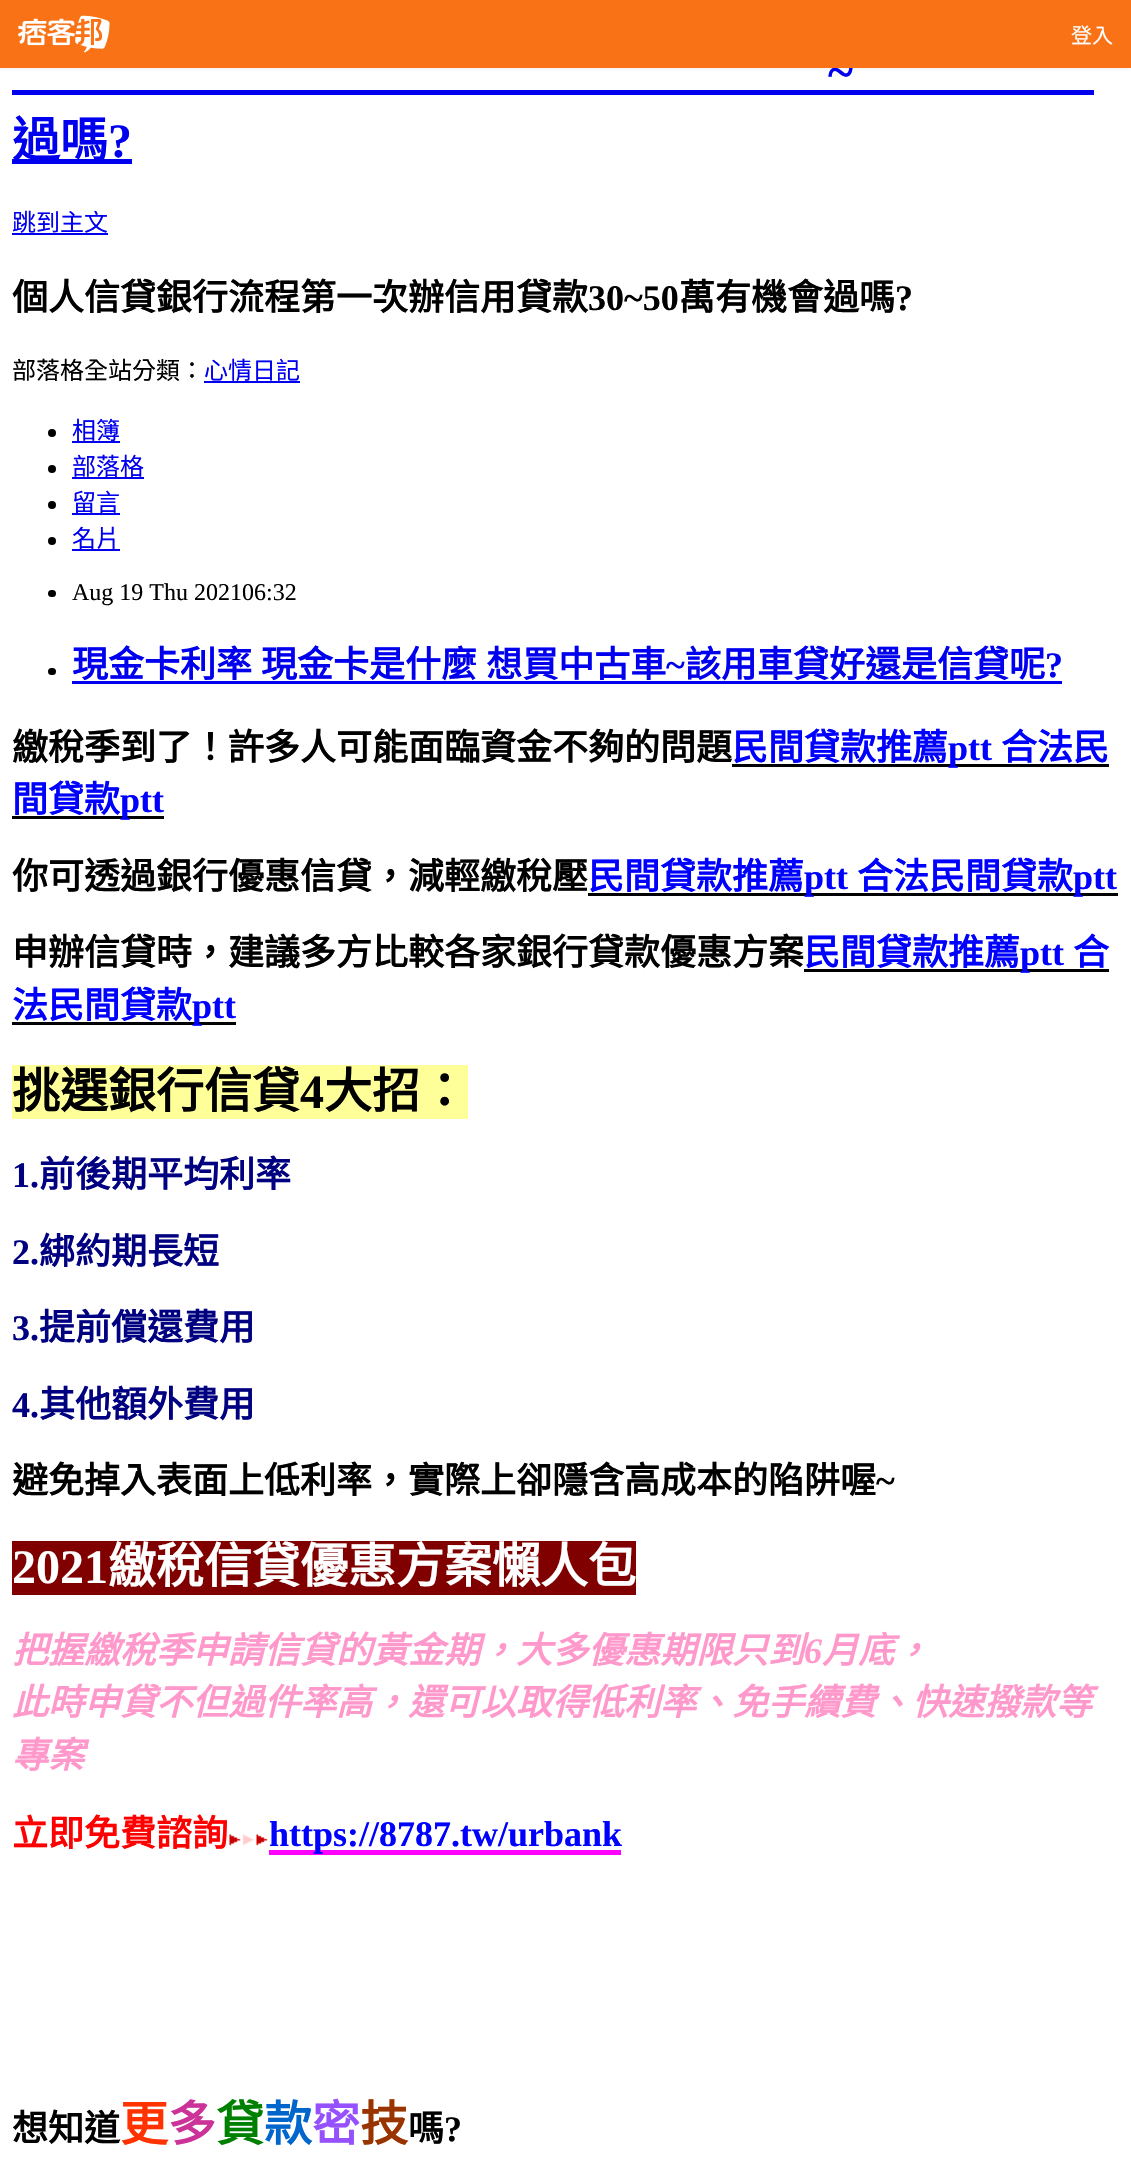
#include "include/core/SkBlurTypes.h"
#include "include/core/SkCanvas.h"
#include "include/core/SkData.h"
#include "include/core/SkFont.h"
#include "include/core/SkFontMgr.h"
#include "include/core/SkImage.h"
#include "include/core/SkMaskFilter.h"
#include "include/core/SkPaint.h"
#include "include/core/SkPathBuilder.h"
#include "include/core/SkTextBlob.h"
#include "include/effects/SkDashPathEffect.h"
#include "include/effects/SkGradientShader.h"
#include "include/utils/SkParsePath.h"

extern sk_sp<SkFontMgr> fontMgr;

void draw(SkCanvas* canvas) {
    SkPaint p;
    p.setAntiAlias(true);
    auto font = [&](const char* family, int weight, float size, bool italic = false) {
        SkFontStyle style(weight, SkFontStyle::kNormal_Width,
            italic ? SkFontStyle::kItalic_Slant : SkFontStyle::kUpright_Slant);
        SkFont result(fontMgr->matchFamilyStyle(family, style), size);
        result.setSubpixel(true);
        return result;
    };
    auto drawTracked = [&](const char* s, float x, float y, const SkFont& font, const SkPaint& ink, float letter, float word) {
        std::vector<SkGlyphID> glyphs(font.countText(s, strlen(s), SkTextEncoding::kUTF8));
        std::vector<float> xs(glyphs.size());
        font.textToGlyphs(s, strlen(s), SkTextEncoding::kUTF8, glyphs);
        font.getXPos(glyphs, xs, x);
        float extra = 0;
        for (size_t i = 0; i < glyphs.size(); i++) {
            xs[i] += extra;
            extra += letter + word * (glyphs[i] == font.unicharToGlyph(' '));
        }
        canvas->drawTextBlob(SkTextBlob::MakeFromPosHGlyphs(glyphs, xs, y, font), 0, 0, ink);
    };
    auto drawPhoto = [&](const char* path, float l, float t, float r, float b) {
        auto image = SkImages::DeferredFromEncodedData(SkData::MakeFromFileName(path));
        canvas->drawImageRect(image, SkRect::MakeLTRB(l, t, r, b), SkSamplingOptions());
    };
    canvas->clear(0xFFFFFFFF);
    p.setColor(0x0D000000);
    p.setMaskFilter(SkMaskFilter::MakeBlur(kNormal_SkBlurStyle, 1.5f));
    canvas->drawRect(SkRect::MakeLTRB(0, 2, 1131, 69), p);
    p.setMaskFilter(nullptr);
    auto font1 = font("Liberation Serif", 700, 48);
    p.setColor(0xFF0000EE);
    canvas->drawString("~", 828, 88, font1, p);
    p.setColor(0xFFF97316);
    canvas->drawRect(SkRect::MakeLTRB(0, 0, 1131, 68), p);
    drawPhoto("media/1.png", 18, 15, 110, 53);
    auto font2 = font("Noto Sans CJK TC", 400, 21);
    p.setColor(0xFFFFFFFF);
    canvas->drawString("登入", 1071, 43, font2, p);
    p.setColor(0xFF0000EE);
    canvas->drawRect(SkRect::MakeLTRB(12, 90, 1094, 95), p);
    canvas->drawRect(SkRect::MakeLTRB(12, 159, 132, 164), p);
    auto font3 = font("Noto Sans CJK TC", 700, 48);
    canvas->drawString("過嗎", 12, 157, font3, p);
    canvas->drawString("?", 108, 157, font1, p);
    auto font4 = font("Noto Sans CJK TC", 400, 24);
    canvas->drawString("跳到主文", 12, 231, font4, p);
    canvas->drawRect(SkRect::MakeLTRB(12, 233, 108, 235), p);
    auto font5 = font("Noto Sans CJK TC", 700, 36);
    p.setColor(0xFF000000);
    canvas->drawString("個人信貸銀行流程第一次辦信用貸款", 12, 310, font5, p);
    auto font6 = font("Liberation Serif", 700, 36);
    canvas->drawString("30~50", 588, 310, font6, p);
    canvas->drawString("萬有機會過嗎", 679, 310, font5, p);
    canvas->drawString("?", 895, 310, font6, p);
    canvas->drawString("部落格全站分類：", 12, 379, font4, p);
    p.setColor(0xFF0000EE);
    canvas->drawRect(SkRect::MakeLTRB(204, 381, 300, 383), p);
    canvas->drawString("心情日記", 204, 379, font4, p);
    p.setColor(0xFF000000);
    canvas->drawCircle(52, 433, 4, p);
    p.setColor(0xFF0000EE);
    canvas->drawString("相簿", 72, 439, font4, p);
    canvas->drawRect(SkRect::MakeLTRB(72, 441, 120, 443), p);
    p.setColor(0xFF000000);
    canvas->drawCircle(52, 469, 4, p);
    p.setColor(0xFF0000EE);
    canvas->drawString("部落格", 72, 475, font4, p);
    canvas->drawRect(SkRect::MakeLTRB(72, 477, 144, 479), p);
    p.setColor(0xFF000000);
    canvas->drawCircle(52, 505, 4, p);
    p.setColor(0xFF0000EE);
    canvas->drawString("留言", 72, 511, font4, p);
    canvas->drawRect(SkRect::MakeLTRB(72, 513, 120, 515), p);
    p.setColor(0xFF000000);
    canvas->drawCircle(52, 541, 4, p);
    p.setColor(0xFF0000EE);
    canvas->drawString("名片", 72, 547, font4, p);
    canvas->drawRect(SkRect::MakeLTRB(72, 549, 120, 551), p);
    p.setColor(0xFF000000);
    canvas->drawRoundRect(SkRect::MakeLTRB(48, 590, 56, 597), 3.5f, 3.5f, p);
    auto font7 = font("Liberation Serif", 400, 24);
    canvas->drawString("Aug 19 Thu 202106:32", 72, 600, font7, p);
    canvas->drawRoundRect(SkRect::MakeLTRB(48, 668, 56, 675), 3.5f, 3.5f, p);
    p.setColor(0xFF0000EE);
    drawTracked("現金卡利率 現金卡是什麼 想買中古車", 72, 677, font5, p, 0, 1);
    canvas->drawString("~", 666, 677, font6, p);
    canvas->drawString("該用車貸好還是信貸呢", 685, 677, font5, p);
    canvas->drawString("?", 1045, 677, font6, p);
    canvas->drawRect(SkRect::MakeLTRB(72, 681, 1062, 684), p);
    p.setColor(0xFF000000);
    canvas->drawString("繳稅季到了！許多人可能面臨資金不夠的問題", 12, 760, font5, p);
    p.setColor(0xFF0000FF);
    canvas->drawString("民間貸款推薦", 732, 760, font5, p);
    p.setColor(0xFF000000);
    canvas->drawRect(SkRect::MakeLTRB(732, 764, 1109, 767), p);
    p.setColor(0xFF0000FF);
    canvas->drawString("ptt", 948, 760, font6, p);
    canvas->drawString("合法民", 1001, 760, font5, p);
    canvas->drawString("間貸款", 12, 812, font5, p);
    p.setColor(0xFF000000);
    canvas->drawRect(SkRect::MakeLTRB(12, 816, 164, 819), p);
    p.setColor(0xFF0000FF);
    canvas->drawString("ptt", 120, 812, font6, p);
    p.setColor(0xFF000000);
    canvas->drawString("你可透過銀行優惠信貸，減輕繳稅壓", 12, 889, font5, p);
    p.setColor(0xFF0000FF);
    canvas->drawString("民間貸款推薦", 588, 889, font5, p);
    p.setColor(0xFF000000);
    canvas->drawRect(SkRect::MakeLTRB(588, 893, 1118, 896), p);
    p.setColor(0xFF0000FF);
    canvas->drawString("ptt", 804, 889, font6, p);
    canvas->drawString("合法民間貸款", 857, 889, font5, p);
    canvas->drawString("ptt", 1073, 889, font6, p);
    p.setColor(0xFF000000);
    canvas->drawString("申辦信貸時，建議多方比較各家銀行貸款優惠方案", 12, 965, font5, p);
    p.setColor(0xFF0000FF);
    canvas->drawString("民間貸款推薦", 804, 965, font5, p);
    p.setColor(0xFF000000);
    canvas->drawRect(SkRect::MakeLTRB(804, 969, 1109, 972), p);
    p.setColor(0xFF0000FF);
    canvas->drawString("ptt", 1020, 965, font6, p);
    canvas->drawString("合", 1073, 965, font5, p);
    canvas->drawString("法民間貸款", 12, 1018, font5, p);
    p.setColor(0xFF000000);
    canvas->drawRect(SkRect::MakeLTRB(12, 1022, 236, 1025), p);
    p.setColor(0xFF0000FF);
    canvas->drawString("ptt", 192, 1018, font6, p);
    p.setColor(0xFFFFFF99);
    canvas->drawRect(SkRect::MakeLTRB(12, 1065, 468, 1119), p);
    p.setColor(0xFF000000);
    canvas->drawString("挑選銀行信貸", 12, 1108, font3, p);
    canvas->drawString("4", 300, 1108, font1, p);
    canvas->drawString("大招：", 324, 1108, font3, p);
    p.setColor(0xFF000080);
    canvas->drawString("1.", 12, 1187, font6, p);
    canvas->drawString("前後期平均利率", 39, 1187, font5, p);
    canvas->drawString("2.", 12, 1264, font6, p);
    canvas->drawString("綁約期長短", 39, 1264, font5, p);
    canvas->drawString("3.", 12, 1340, font6, p);
    canvas->drawString("提前償還費用", 39, 1340, font5, p);
    canvas->drawString("4.", 12, 1417, font6, p);
    canvas->drawString("其他額外費用", 39, 1417, font5, p);
    p.setColor(0xFF000000);
    canvas->drawString("避免掉入表面上低利率，實際上卻隱含高成本的陷阱喔", 12, 1493, font5, p);
    canvas->drawString("~", 876, 1493, font6, p);
    p.setColor(0xFF800000);
    canvas->drawRect(SkRect::MakeLTRB(12, 1541, 636, 1595), p);
    p.setColor(0xFFFFFFFF);
    canvas->drawString("2021", 12, 1583, font1, p);
    canvas->drawString("繳稅信貸優惠方案懶人包", 108, 1583, font3, p);
    auto font8 = font("Noto Sans CJK TC", 700, 36, true);
    p.setColor(0xFFFF99CC);
    canvas->drawString("把握繳稅季申請信貸的黃金期，大多優惠期限只到", 12, 1663, font8, p);
    auto font9 = font("Liberation Serif", 700, 36, true);
    canvas->drawString("6", 804, 1663, font9, p);
    {
        const struct { const char* s; float x, y; } items[] = {
            {"月底，", 822, 1663},
            {"此時申貸不但過件率高，還可以取得低利率、免手續費、快速撥款等", 12, 1715},
            {"專案", 12, 1768},
        };
        for (auto [s, x, y] : items) {
            canvas->drawString(s, x, y, font8, p);
        }
    }
    p.setColor(0xFFFF0000);
    canvas->drawString("立即免費諮詢", 12, 1846, font5, p);
    drawPhoto("media/2.png", 229, 1834, 268, 1846);
    p.setColor(0xFFFF00FF);
    canvas->drawRect(SkRect::MakeLTRB(269, 1850, 621, 1855), p);
    p.setColor(0xFF0000FF);
    canvas->drawString("https://8787.tw/urbank", 269, 1846, font6, p);
    p.setColor(0xFF000000);
    canvas->drawString("想知道", 12, 2141, font5, p);
    p.setColor(0xFFFF3300);
    canvas->drawString("更", 120, 2141, font3, p);
    p.setColor(0xFFCC3399);
    canvas->drawString("多", 168, 2141, font3, p);
    p.setColor(0xFF008000);
    canvas->drawString("貸", 216, 2141, font3, p);
    p.setColor(0xFF0066CC);
    canvas->drawString("款", 264, 2141, font3, p);
    p.setColor(0xFF9651FF);
    canvas->drawString("密", 312, 2141, font3, p);
    p.setColor(0xFF993300);
    canvas->drawString("技", 360, 2141, font3, p);
    p.setColor(0xFF000000);
    canvas->drawString("嗎", 408, 2141, font5, p);
    canvas->drawString("?", 444, 2141, font6, p);
}
